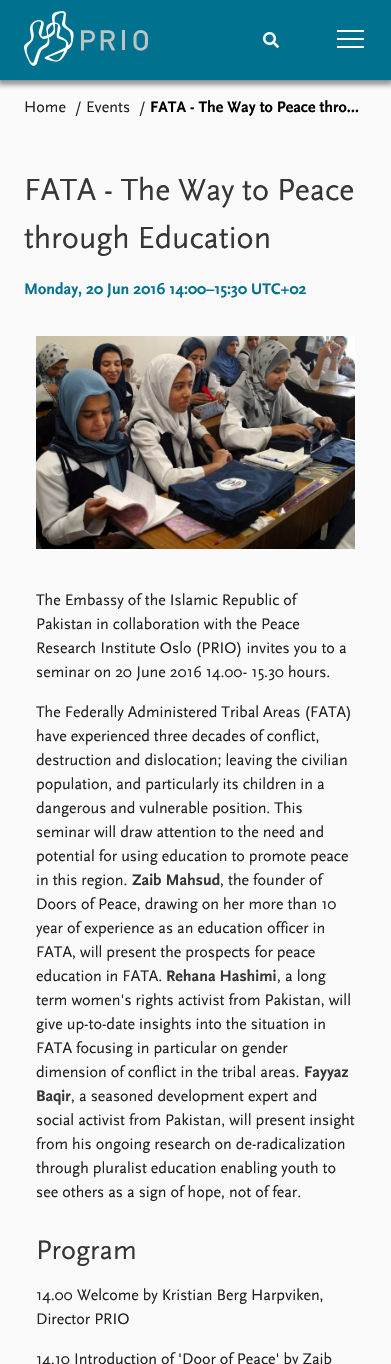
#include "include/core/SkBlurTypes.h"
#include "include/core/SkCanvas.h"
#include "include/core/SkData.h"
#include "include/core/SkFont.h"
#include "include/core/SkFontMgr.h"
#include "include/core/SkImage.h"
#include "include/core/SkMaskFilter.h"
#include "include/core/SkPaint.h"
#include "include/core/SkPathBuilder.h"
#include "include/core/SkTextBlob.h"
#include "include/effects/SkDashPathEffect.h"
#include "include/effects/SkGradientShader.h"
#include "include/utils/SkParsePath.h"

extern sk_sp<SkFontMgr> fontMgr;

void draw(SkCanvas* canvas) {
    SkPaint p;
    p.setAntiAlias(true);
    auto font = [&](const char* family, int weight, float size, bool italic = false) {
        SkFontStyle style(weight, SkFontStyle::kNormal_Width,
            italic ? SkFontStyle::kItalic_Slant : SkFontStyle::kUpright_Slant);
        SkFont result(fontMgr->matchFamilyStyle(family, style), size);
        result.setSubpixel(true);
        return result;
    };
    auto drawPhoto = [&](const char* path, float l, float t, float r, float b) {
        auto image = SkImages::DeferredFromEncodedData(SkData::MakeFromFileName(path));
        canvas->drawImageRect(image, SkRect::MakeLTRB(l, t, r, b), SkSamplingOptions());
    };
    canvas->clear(0xFFFAFAFA);
    p.setStyle(SkPaint::kStroke_Style);
    p.setStrokeWidth(1);
    p.setColor(0xFFE7E7E7);
    canvas->drawRect(SkRect::MakeLTRB(-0.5f, -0.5f, 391.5f, 80.5f), p);
    p.setStyle(SkPaint::kFill_Style);
    p.setColor(0x80323232);
    p.setMaskFilter(SkMaskFilter::MakeBlur(kNormal_SkBlurStyle, 2.5f));
    canvas->drawRect(SkRect::MakeLTRB(-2, 2, 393, 85), p);
    p.setMaskFilter(nullptr);
    p.setColor(0xFF00718F);
    canvas->drawRect(SkRect::MakeLTRB(0, 0, 391, 80), p);
    drawPhoto("media/1.png", 24, 11, 148, 66);
    drawPhoto("media/2.png", 263, 32, 279, 48);
    {
        const struct { float l, t, r, b; SkColor color; } items[] = {
            {337, 30, 364, 32, 0xFFFFFFFF},
            {337, 38, 364, 40, 0xFFFFFFFF},
            {337, 46, 364, 48, 0xFFFFFFFF},
        };
        for (auto [l, t, r, b, color] : items) {
            p.setColor(color);
            canvas->drawRect(SkRect::MakeLTRB(l, t, r, b), p);
        }
    }
    auto font1 = font("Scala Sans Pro", 400, 16);
    p.setColor(0xFF222222);
    {
        const struct { const char* s; float x, y; } items[] = {
            {"Home", 24, 112},
            {"/", 75, 112},
            {"Events", 86, 112},
            {"/", 139, 112},
        };
        for (auto [s, x, y] : items) {
            canvas->drawString(s, x, y, font1, p);
        }
    }
    auto font2 = font("Scala Sans Pro", 700, 16);
    p.setColor(0xFF000000);
    canvas->drawString("FATA - The Way to Peace thro…", 150, 112, font2, p);
    auto font3 = font("Scala Sans Pro", 400, 32);
    p.setColor(0xFF363636);
    canvas->drawString("FATA - The Way to Peace", 24, 200, font3, p);
    canvas->drawString("through Education", 24, 248, font3, p);
    p.setColor(0xFF00718F);
    canvas->drawString("Monday, 20 Jun 2016 14:00–15:30 UTC+02", 24, 294, font2, p);
    drawPhoto("media/3.png", 36, 336, 355, 549);
    p.setColor(0xFF222222);
    {
        const struct { const char* s; float x, y; } items[] = {
            {"The Embassy of the Islamic Republic of", 36, 605},
            {"Pakistan in collaboration with the Peace", 36, 629},
            {"Research Institute Oslo (PRIO) invites you to a", 36, 653},
            {"seminar on 20 June 2016 14.00- 15.30 hours.", 36, 677},
            {"The Federally Administered Tribal Areas (FATA)", 36, 717},
            {"have experienced three decades of conflict,", 36, 741},
            {"destruction and dislocation; leaving the civilian", 36, 765},
            {"population, and particularly its children in a", 36, 789},
            {"dangerous and vulnerable position. This", 36, 813},
            {"seminar will draw attention to the need and", 36, 837},
            {"potential for using education to promote peace", 36, 861},
            {"in this region.", 36, 885},
        };
        for (auto [s, x, y] : items) {
            canvas->drawString(s, x, y, font1, p);
        }
    }
    p.setColor(0xFF363636);
    canvas->drawString("Zaib Mahsud", 132, 885, font2, p);
    p.setColor(0xFF222222);
    {
        const struct { const char* s; float x, y; } items[] = {
            {", the founder of", 220, 885},
            {"Doors of Peace, drawing on her more than 10", 36, 909},
            {"year of experience as an education officer in", 36, 933},
            {"FATA, will present the prospects for peace", 36, 957},
            {"education in FATA.", 36, 981},
        };
        for (auto [s, x, y] : items) {
            canvas->drawString(s, x, y, font1, p);
        }
    }
    p.setColor(0xFF363636);
    canvas->drawString("Rehana Hashimi", 166, 981, font2, p);
    p.setColor(0xFF222222);
    {
        const struct { const char* s; float x, y; } items[] = {
            {", a long", 277, 981},
            {"term women's rights activist from Pakistan, will", 36, 1005},
            {"give up-to-date insights into the situation in", 36, 1029},
            {"FATA focusing in particular on gender", 36, 1053},
            {"dimension of conflict in the tribal areas.", 36, 1077},
        };
        for (auto [s, x, y] : items) {
            canvas->drawString(s, x, y, font1, p);
        }
    }
    p.setColor(0xFF363636);
    canvas->drawString("Fayyaz", 304, 1077, font2, p);
    canvas->drawString("Baqir", 36, 1101, font2, p);
    p.setColor(0xFF222222);
    {
        const struct { const char* s; float x, y; } items[] = {
            {", a seasoned development expert and", 71, 1101},
            {"social activist from Pakistan, will present insight", 36, 1125},
            {"from his ongoing research on de-radicalization", 36, 1149},
            {"through pluralist education enabling youth to", 36, 1173},
            {"see others as a sign of hope, not of fear.", 36, 1197},
        };
        for (auto [s, x, y] : items) {
            canvas->drawString(s, x, y, font1, p);
        }
    }
    auto font4 = font("Scala Sans Pro", 400, 28);
    p.setColor(0xFF363636);
    canvas->drawString("Program", 36, 1259, font4, p);
    p.setColor(0xFF222222);
    {
        const struct { const char* s; float x, y; } items[] = {
            {"14.00 Welcome by Kristian Berg Harpviken,", 36, 1300},
            {"Director PRIO", 36, 1324},
            {"14.10 Introduction of 'Door of Peace' by Zaib", 36, 1364},
        };
        for (auto [s, x, y] : items) {
            canvas->drawString(s, x, y, font1, p);
        }
    }
}
